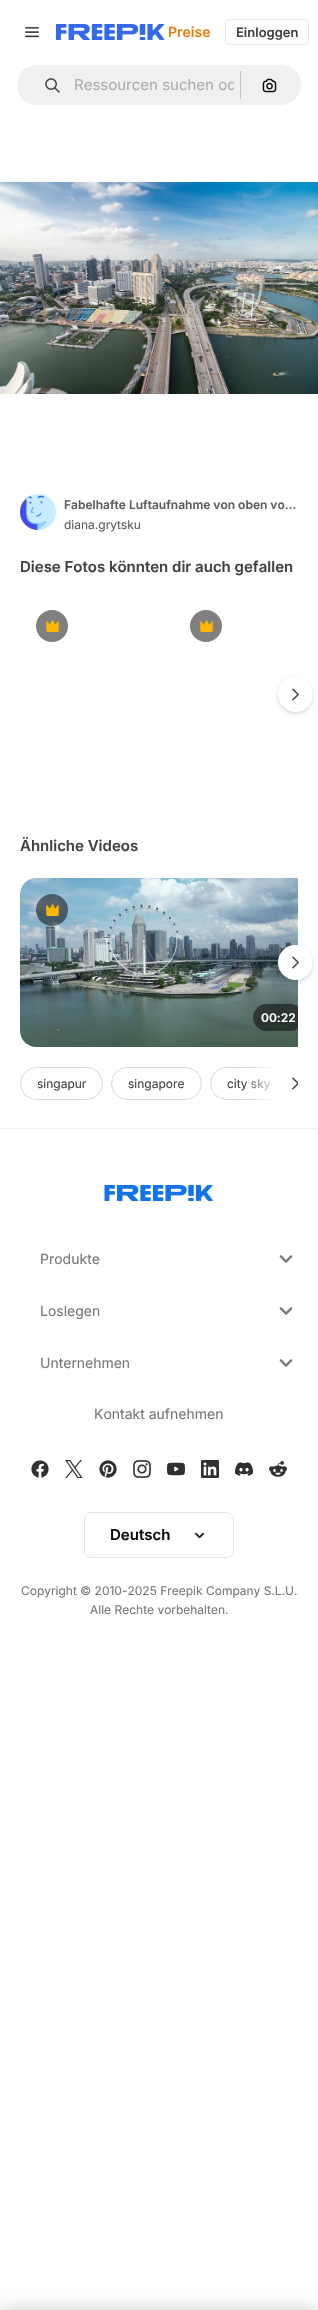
#include "include/core/SkBlurTypes.h"
#include "include/core/SkCanvas.h"
#include "include/core/SkData.h"
#include "include/core/SkFont.h"
#include "include/core/SkFontMgr.h"
#include "include/core/SkImage.h"
#include "include/core/SkMaskFilter.h"
#include "include/core/SkPaint.h"
#include "include/core/SkPathBuilder.h"
#include "include/core/SkTextBlob.h"
#include "include/effects/SkDashPathEffect.h"
#include "include/effects/SkGradientShader.h"
#include "include/utils/SkParsePath.h"

extern sk_sp<SkFontMgr> fontMgr;

void draw(SkCanvas* canvas) {
    SkPaint p;
    p.setAntiAlias(true);
    auto font = [&](const char* family, int weight, float size, bool italic = false) {
        SkFontStyle style(weight, SkFontStyle::kNormal_Width,
            italic ? SkFontStyle::kItalic_Slant : SkFontStyle::kUpright_Slant);
        SkFont result(fontMgr->matchFamilyStyle(family, style), size);
        result.setSubpixel(true);
        return result;
    };
    auto drawPhoto = [&](const char* path, float l, float t, float r, float b) {
        auto image = SkImages::DeferredFromEncodedData(SkData::MakeFromFileName(path));
        canvas->drawImageRect(image, SkRect::MakeLTRB(l, t, r, b), SkSamplingOptions());
    };
    canvas->clear(0xFFFFFFFF);
    drawPhoto("media/1.png", 25, 27, 39, 38);
    drawPhoto("media/2.png", 56, 24, 165, 40);
    auto font1 = font("Inter", 600, 14);
    p.setColor(0xFFEA7E11);
    canvas->drawString("Preise", 168, 37, font1, p);
    p.setStyle(SkPaint::kStroke_Style);
    p.setStrokeWidth(1);
    p.setColor(0xFFE7E7E7);
    canvas->drawRoundRect(SkRect::MakeLTRB(225.5f, 19.5f, 308.5f, 44.5f), 3.5f, 3.5f, p);
    auto font2 = font("Inter", 600, 13);
    p.setStyle(SkPaint::kFill_Style);
    p.setColor(0xFF424242);
    canvas->drawString("Einloggen", 236, 37, font2, p);
    p.setColor(0xFFF0F0F0);
    canvas->drawRoundRect(SkRect::MakeLTRB(16.5f, 64.5f, 301.5f, 105.5f), 20.5f, 20.5f, p);
    p.setStyle(SkPaint::kStroke_Style);
    p.setColor(0xFFFFFFFF);
    canvas->drawRoundRect(SkRect::MakeLTRB(16.5f, 64.5f, 301.5f, 105.5f), 20.5f, 20.5f, p);
    drawPhoto("media/3.png", 45, 78, 60, 93);
    canvas->save();
    canvas->clipRect(SkRect::MakeLTRB(74, 75, 234, 94));
    auto font3 = font("Inter", 400, 15);
    p.setStyle(SkPaint::kFill_Style);
    p.setColor(0xFFADADAD);
    canvas->drawString("Ressourcen suchen od", 74, 90, font3, p);
    canvas->restore();
    p.setColor(0xFFC3C3C3);
    canvas->drawRect(SkRect::MakeLTRB(240, 71, 241, 99), p);
    drawPhoto("media/4.png", 262, 78, 277, 93);
    drawPhoto("media/5.png", 0, 182, 318, 394);
    drawPhoto("media/6.png", 20, 494, 56, 530);
    auto font4 = font("Inter", 600, 12);
    p.setColor(0xFF5C5C5C);
    canvas->drawString("Fabelhafte Luftaufnahme von oben vo…", 64, 509, font4, p);
    auto font5 = font("Inter", 400, 12);
    canvas->drawString("diana.grytsku", 64, 529, font5, p);
    auto font6 = font("Inter", 600, 15);
    p.setColor(0xFF424242);
    canvas->drawString("Diese Fotos könnten dir auch gefallen", 20, 572, font6, p);
    p.setColor(0xFF808080);
    canvas->drawCircle(52, 626, 16, p);
    drawPhoto("media/7.png", 46, 620, 59, 632);
    canvas->drawCircle(206, 626, 16, p);
    drawPhoto("media/7.png", 200, 620, 213, 632);
    p.setColor(0x26374957);
    p.setMaskFilter(SkMaskFilter::MakeBlur(kNormal_SkBlurStyle, 2.5f));
    canvas->drawRoundRect(SkRect::MakeLTRB(278, 679, 313, 714), 17.5f, 17.5f, p);
    p.setMaskFilter(nullptr);
    p.setColor(0x1A374957);
    p.setMaskFilter(SkMaskFilter::MakeBlur(kNormal_SkBlurStyle, 1));
    canvas->drawRoundRect(SkRect::MakeLTRB(278, 678, 313, 713), 17.5f, 17.5f, p);
    p.setMaskFilter(nullptr);
    p.setColor(0xFFFFFFFF);
    canvas->drawCircle(295.5f, 694.5f, 17.5f, p);
    drawPhoto("media/8.png", 292, 688, 299, 701);
    p.setColor(0xFF424242);
    canvas->drawString("Ähnliche Videos", 20, 851, font6, p);
    p.setColor(0xFFE6E6E6);
    canvas->drawPath(SkPathBuilder().moveTo(36, 878).lineTo(298, 878).lineTo(298, 1047).lineTo(36, 1047).cubicTo(27, 1047, 20, 1040, 20, 1031).lineTo(20, 894).cubicTo(20, 885, 27, 878, 36, 878).close().detach(), p);
    drawPhoto("media/10.png", 20, 878, 298, 1047);
    p.setColor(0x26374957);
    p.setMaskFilter(SkMaskFilter::MakeBlur(kNormal_SkBlurStyle, 2.5f));
    canvas->drawRoundRect(SkRect::MakeLTRB(278, 947, 313, 982), 17.5f, 17.5f, p);
    p.setMaskFilter(nullptr);
    p.setColor(0x1A374957);
    p.setMaskFilter(SkMaskFilter::MakeBlur(kNormal_SkBlurStyle, 1));
    canvas->drawRoundRect(SkRect::MakeLTRB(278, 946, 313, 981), 17.5f, 17.5f, p);
    p.setMaskFilter(nullptr);
    p.setColor(0xFFFFFFFF);
    canvas->drawCircle(295.5f, 962.5f, 17.5f, p);
    drawPhoto("media/8.png", 292, 956, 299, 969);
    p.setColor(0x80000000);
    canvas->drawCircle(52, 910, 16, p);
    drawPhoto("media/9.png", 46, 904, 59, 916);
    canvas->save();
    canvas->clipRect(SkRect::MakeLTRB(20, 878, 298, 1047));
    canvas->drawRoundRect(SkRect::MakeLTRB(253, 1004, 304, 1031), 13.5f, 13.5f, p);
    canvas->restore();
    p.setColor(0xFFFFFFFF);
    canvas->drawString("00:22", 261, 1022, font4, p);
    p.setStyle(SkPaint::kStroke_Style);
    p.setColor(0xFFD8D8D8);
    canvas->drawRoundRect(SkRect::MakeLTRB(20.5f, 1067.5f, 102.5f, 1099.5f), 16, 16, p);
    p.setStyle(SkPaint::kFill_Style);
    p.setColor(0xFF424242);
    canvas->drawString("singapur", 37, 1088, font5, p);
    p.setStyle(SkPaint::kStroke_Style);
    p.setColor(0xFFD8D8D8);
    canvas->drawRoundRect(SkRect::MakeLTRB(111.5f, 1067.5f, 201.5f, 1099.5f), 16, 16, p);
    p.setStyle(SkPaint::kFill_Style);
    p.setColor(0xFF424242);
    canvas->drawString("singapore", 128, 1088, font5, p);
    canvas->save();
    canvas->clipRect(SkRect::MakeLTRB(20, 1067, 298, 1100));
    p.setStyle(SkPaint::kStroke_Style);
    p.setColor(0xFFD8D8D8);
    canvas->drawRoundRect(SkRect::MakeLTRB(210.5f, 1067.5f, 306.5f, 1099.5f), 16, 16, p);
    canvas->restore();
    p.setStyle(SkPaint::kFill_Style);
    p.setColor(0xFF424242);
    canvas->drawString("city sky", 227, 1088, font5, p);
    p.setColor(0xFFFFFFFF);
    canvas->drawRect(SkRect::MakeLTRB(278, 1067, 298, 1100), p);
    {
        const SkColor colors[] = {0xFFFFFFFF, 0x00FFFFFF};
        const float stops[] = {0, 1};
        const SkPoint ends[] = {{278, 1084}, {243, 1084}};
        p.setShader(SkGradientShader::MakeLinear(ends, colors, stops, 2, SkTileMode::kClamp));
        p.setAlpha(255);
    }
    canvas->drawRect(SkRect::MakeLTRB(244, 1067, 278, 1100), p);
    drawPhoto("media/11.png", 292, 1077, 298, 1090);
    p.setShader(nullptr);
    p.setColor(0xFFF0F0F0);
    canvas->drawRect(SkRect::MakeLTRB(0, 1128, 318, 1129), p);
    drawPhoto("media/12.png", 104, 1185, 213, 1201);
    auto font7 = font("Inter", 400, 14);
    p.setColor(0xFF777777);
    canvas->drawString("Produkte", 40, 1264, font7, p);
    drawPhoto("media/13.png", 279, 1255, 293, 1263);
    canvas->drawString("Loslegen", 40, 1316, font7, p);
    drawPhoto("media/13.png", 279, 1307, 293, 1315);
    canvas->drawString("Unternehmen", 40, 1368, font7, p);
    drawPhoto("media/13.png", 279, 1359, 293, 1367);
    canvas->drawString("Kontakt aufnehmen", 94, 1419, font7, p);
    drawPhoto("media/14.png", 31, 1460, 49, 1478);
    drawPhoto("media/15.png", 65, 1460, 83, 1478);
    drawPhoto("media/16.png", 99, 1460, 117, 1478);
    drawPhoto("media/17.png", 133, 1460, 151, 1478);
    drawPhoto("media/18.png", 167, 1462, 185, 1476);
    drawPhoto("media/19.png", 201, 1460, 219, 1478);
    drawPhoto("media/20.png", 235, 1462, 253, 1476);
    drawPhoto("media/21.png", 269, 1461, 287, 1477);
    p.setStyle(SkPaint::kStroke_Style);
    p.setColor(0xFFE6E6E6);
    canvas->drawRoundRect(SkRect::MakeLTRB(84.5f, 1512.5f, 233.5f, 1557.5f), 6.5f, 6.5f, p);
    p.setStyle(SkPaint::kFill_Style);
    p.setColor(0xFF0D0D0D);
    canvas->drawString("Deutsch", 110, 1540, font6, p);
    drawPhoto("media/22.png", 195, 1532, 204, 1539);
    p.setColor(0xFF777777);
    canvas->drawString("Copyright © 2010-2025 Freepik Company S.L.U.", 21, 1595, font5, p);
    canvas->drawString("Alle Rechte vorbehalten.", 90, 1614, font5, p);
    p.setColor(0x33000000);
    p.setMaskFilter(SkMaskFilter::MakeBlur(kNormal_SkBlurStyle, 9));
    canvas->drawRect(SkRect::MakeLTRB(0, 2310, 318, 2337), p);
    p.setMaskFilter(nullptr);
}
